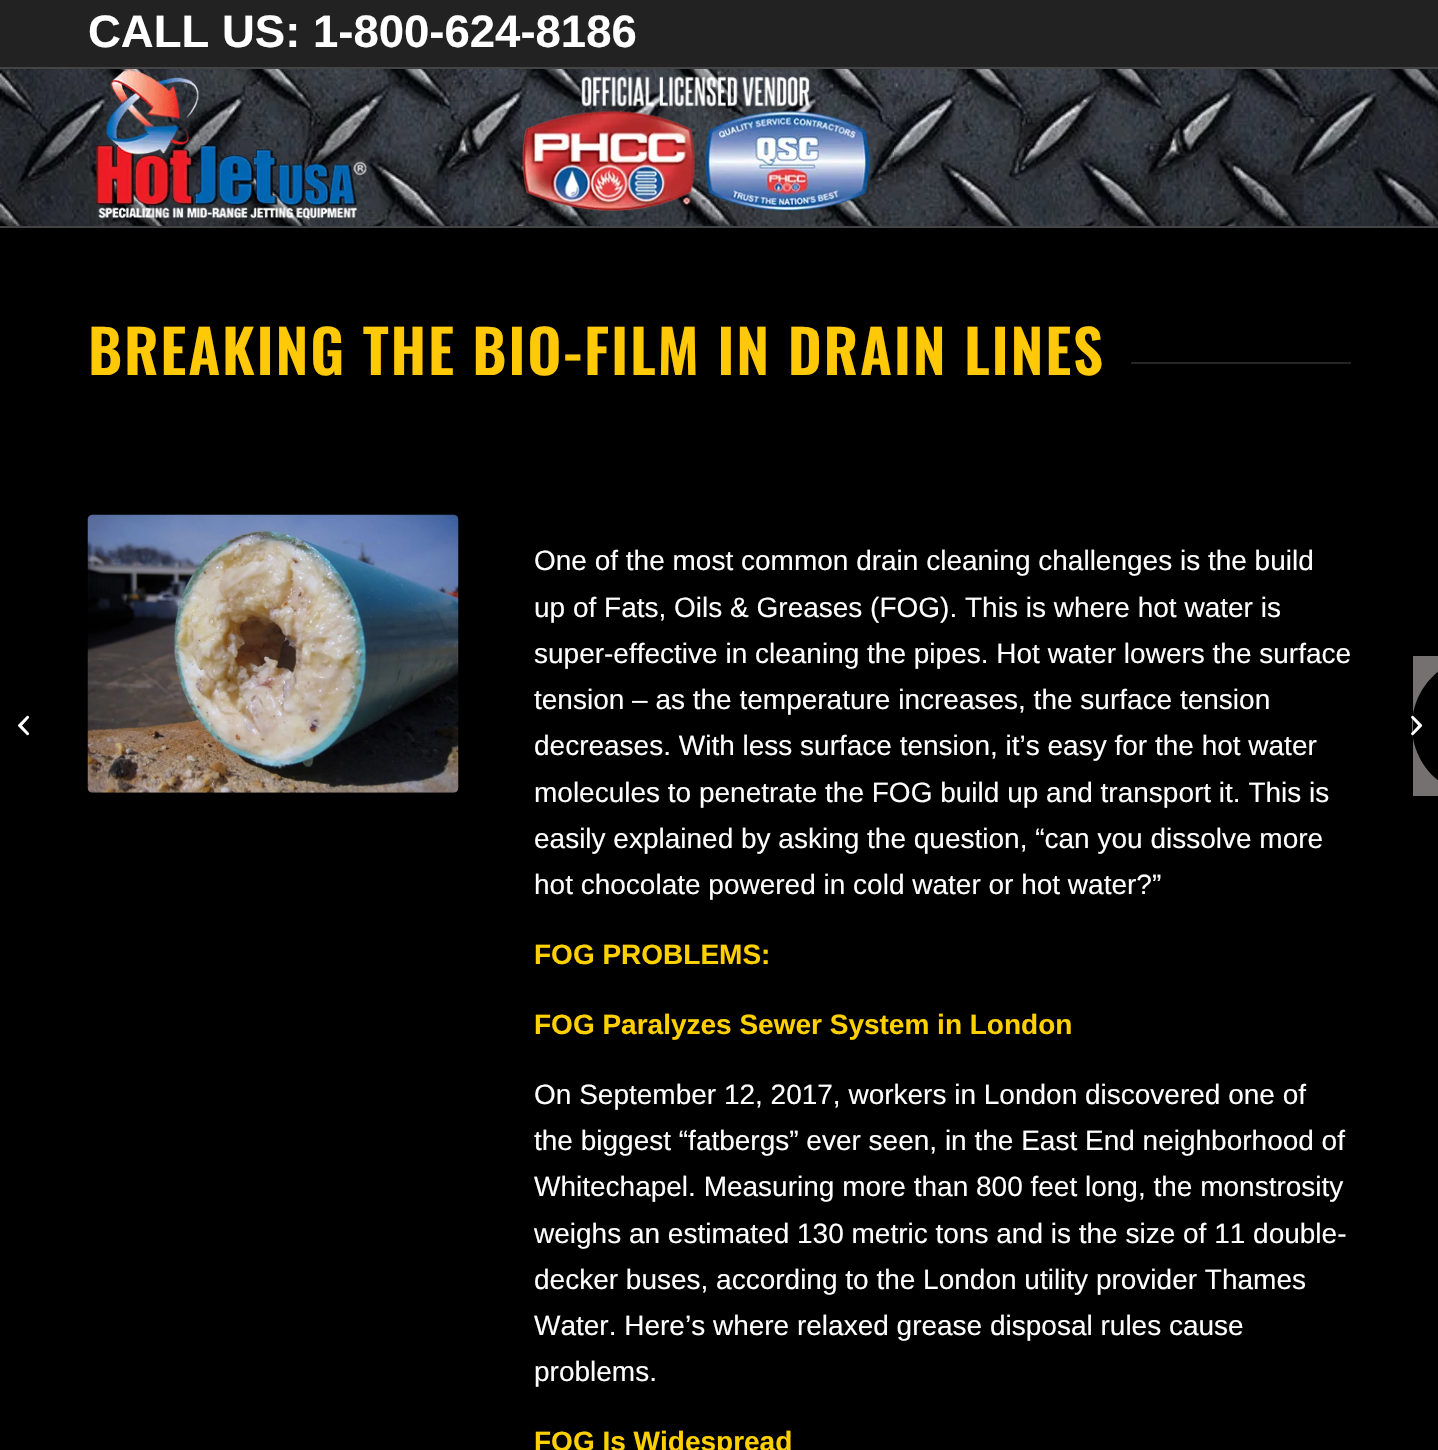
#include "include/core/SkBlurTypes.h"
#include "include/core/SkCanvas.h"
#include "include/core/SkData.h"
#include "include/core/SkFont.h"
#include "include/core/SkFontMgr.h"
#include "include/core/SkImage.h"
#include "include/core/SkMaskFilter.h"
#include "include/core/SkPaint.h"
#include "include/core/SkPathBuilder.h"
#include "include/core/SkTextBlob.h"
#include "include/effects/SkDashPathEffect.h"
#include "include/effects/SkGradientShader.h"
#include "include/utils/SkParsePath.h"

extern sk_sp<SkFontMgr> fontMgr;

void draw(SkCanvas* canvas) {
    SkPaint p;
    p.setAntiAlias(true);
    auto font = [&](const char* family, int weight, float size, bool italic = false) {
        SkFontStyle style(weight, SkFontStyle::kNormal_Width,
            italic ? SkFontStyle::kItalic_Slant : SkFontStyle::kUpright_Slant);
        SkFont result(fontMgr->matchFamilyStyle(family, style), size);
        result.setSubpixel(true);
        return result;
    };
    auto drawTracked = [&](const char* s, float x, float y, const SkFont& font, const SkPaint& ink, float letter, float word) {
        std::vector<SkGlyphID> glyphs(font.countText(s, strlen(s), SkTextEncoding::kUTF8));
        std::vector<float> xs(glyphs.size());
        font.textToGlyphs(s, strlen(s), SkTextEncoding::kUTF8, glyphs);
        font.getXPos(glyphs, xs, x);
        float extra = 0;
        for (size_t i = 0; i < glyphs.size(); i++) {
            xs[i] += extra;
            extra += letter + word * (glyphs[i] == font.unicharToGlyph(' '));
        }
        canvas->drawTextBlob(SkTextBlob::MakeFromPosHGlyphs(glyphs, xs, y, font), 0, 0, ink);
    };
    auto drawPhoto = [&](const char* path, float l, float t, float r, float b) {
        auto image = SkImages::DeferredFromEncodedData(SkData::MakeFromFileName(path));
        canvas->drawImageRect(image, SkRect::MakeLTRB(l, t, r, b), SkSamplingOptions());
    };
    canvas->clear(0xFF000000);
    p.setColor(0xFF222222);
    canvas->drawRect(SkRect::MakeLTRB(0, 0, 1438, 67), p);
    p.setColor(0xFF444444);
    canvas->drawRect(SkRect::MakeLTRB(0, 67, 1438, 69), p);
    auto font1 = font("Liberation Sans", 700, 45.5f);
    p.setColor(0xFFFFFFFF);
    canvas->drawString("CALL US: 1-800-624-8186", 88, 47, font1, p);
    drawPhoto("media/1.png", 0, 69, 1438, 226);
    p.setColor(0xFF444444);
    canvas->drawRect(SkRect::MakeLTRB(0, 226, 1438, 228), p);
    drawPhoto("media/2.png", 96, 69, 870, 220);
    drawPhoto("media/3.png", 18, 715, 30, 736);
    auto font2 = font("Oswald", 600, 59.5f);
    p.setColor(0xFFFFC908);
    drawTracked("BREAKING THE BIO-FILM IN DRAIN LINES", 88, 375, font2, p, 1.75f, 0);
    p.setColor(0xFF262626);
    canvas->drawRect(SkRect::MakeLTRB(1131, 362, 1351, 364), p);
    drawPhoto("media/4.png", 87, 514, 459, 793);
    auto font3 = font("Liberation Sans", 400, 28);
    p.setColor(0xFFFFFFFF);
    {
        const struct { const char* s; float x, y; } items[] = {
            {"One of the most common drain cleaning challenges is the build", 534, 570},
            {"up of Fats, Oils & Greases (FOG). This is where hot water is", 534, 617},
            {"super-effective in cleaning the pipes. Hot water lowers the surface", 534, 663},
            {"tension – as the temperature increases, the surface tension", 534, 709},
            {"decreases. With less surface tension, it’s easy for the hot water", 534, 755},
            {"molecules to penetrate the FOG build up and transport it. This is", 534, 802},
            {"easily explained by asking the question, “can you dissolve more", 534, 848},
            {"hot chocolate powered in cold water or hot water?”", 534, 894},
        };
        for (auto [s, x, y] : items) {
            canvas->drawString(s, x, y, font3, p);
        }
    }
    auto font4 = font("Liberation Sans", 700, 28);
    p.setColor(0xFFFFD000);
    canvas->drawString("FOG PROBLEMS:", 534, 964, font4, p);
    canvas->drawString("FOG Paralyzes Sewer System in London", 534, 1034, font4, p);
    p.setColor(0xFFFFFFFF);
    {
        const struct { const char* s; float x, y; } items[] = {
            {"On September 12, 2017, workers in London discovered one of", 534, 1104},
            {"the biggest “fatbergs” ever seen, in the East End neighborhood of", 534, 1150},
            {"Whitechapel. Measuring more than 800 feet long, the monstrosity", 534, 1196},
            {"weighs an estimated 130 metric tons and is the size of 11 double-", 534, 1243},
            {"decker buses, according to the London utility provider Thames", 534, 1289},
            {"Water. Here’s where relaxed grease disposal rules cause", 534, 1335},
            {"problems.", 534, 1381},
        };
        for (auto [s, x, y] : items) {
            canvas->drawString(s, x, y, font3, p);
        }
    }
    p.setColor(0xFFFFD000);
    canvas->drawString("FOG Is Widespread", 534, 1451, font4, p);
    p.setColor(0xFF747170);
    canvas->drawPath(SkPathBuilder().moveTo(1482, 656).lineTo(1413, 656).lineTo(1413, 796).lineTo(1482, 796).cubicTo(1443.5f, 796, 1412, 764.5f, 1412, 726).cubicTo(1412, 687.5f, 1443.5f, 656, 1482, 656).close().detach(), p);
    drawPhoto("media/5.png", 1411, 715, 1423, 736);
}
